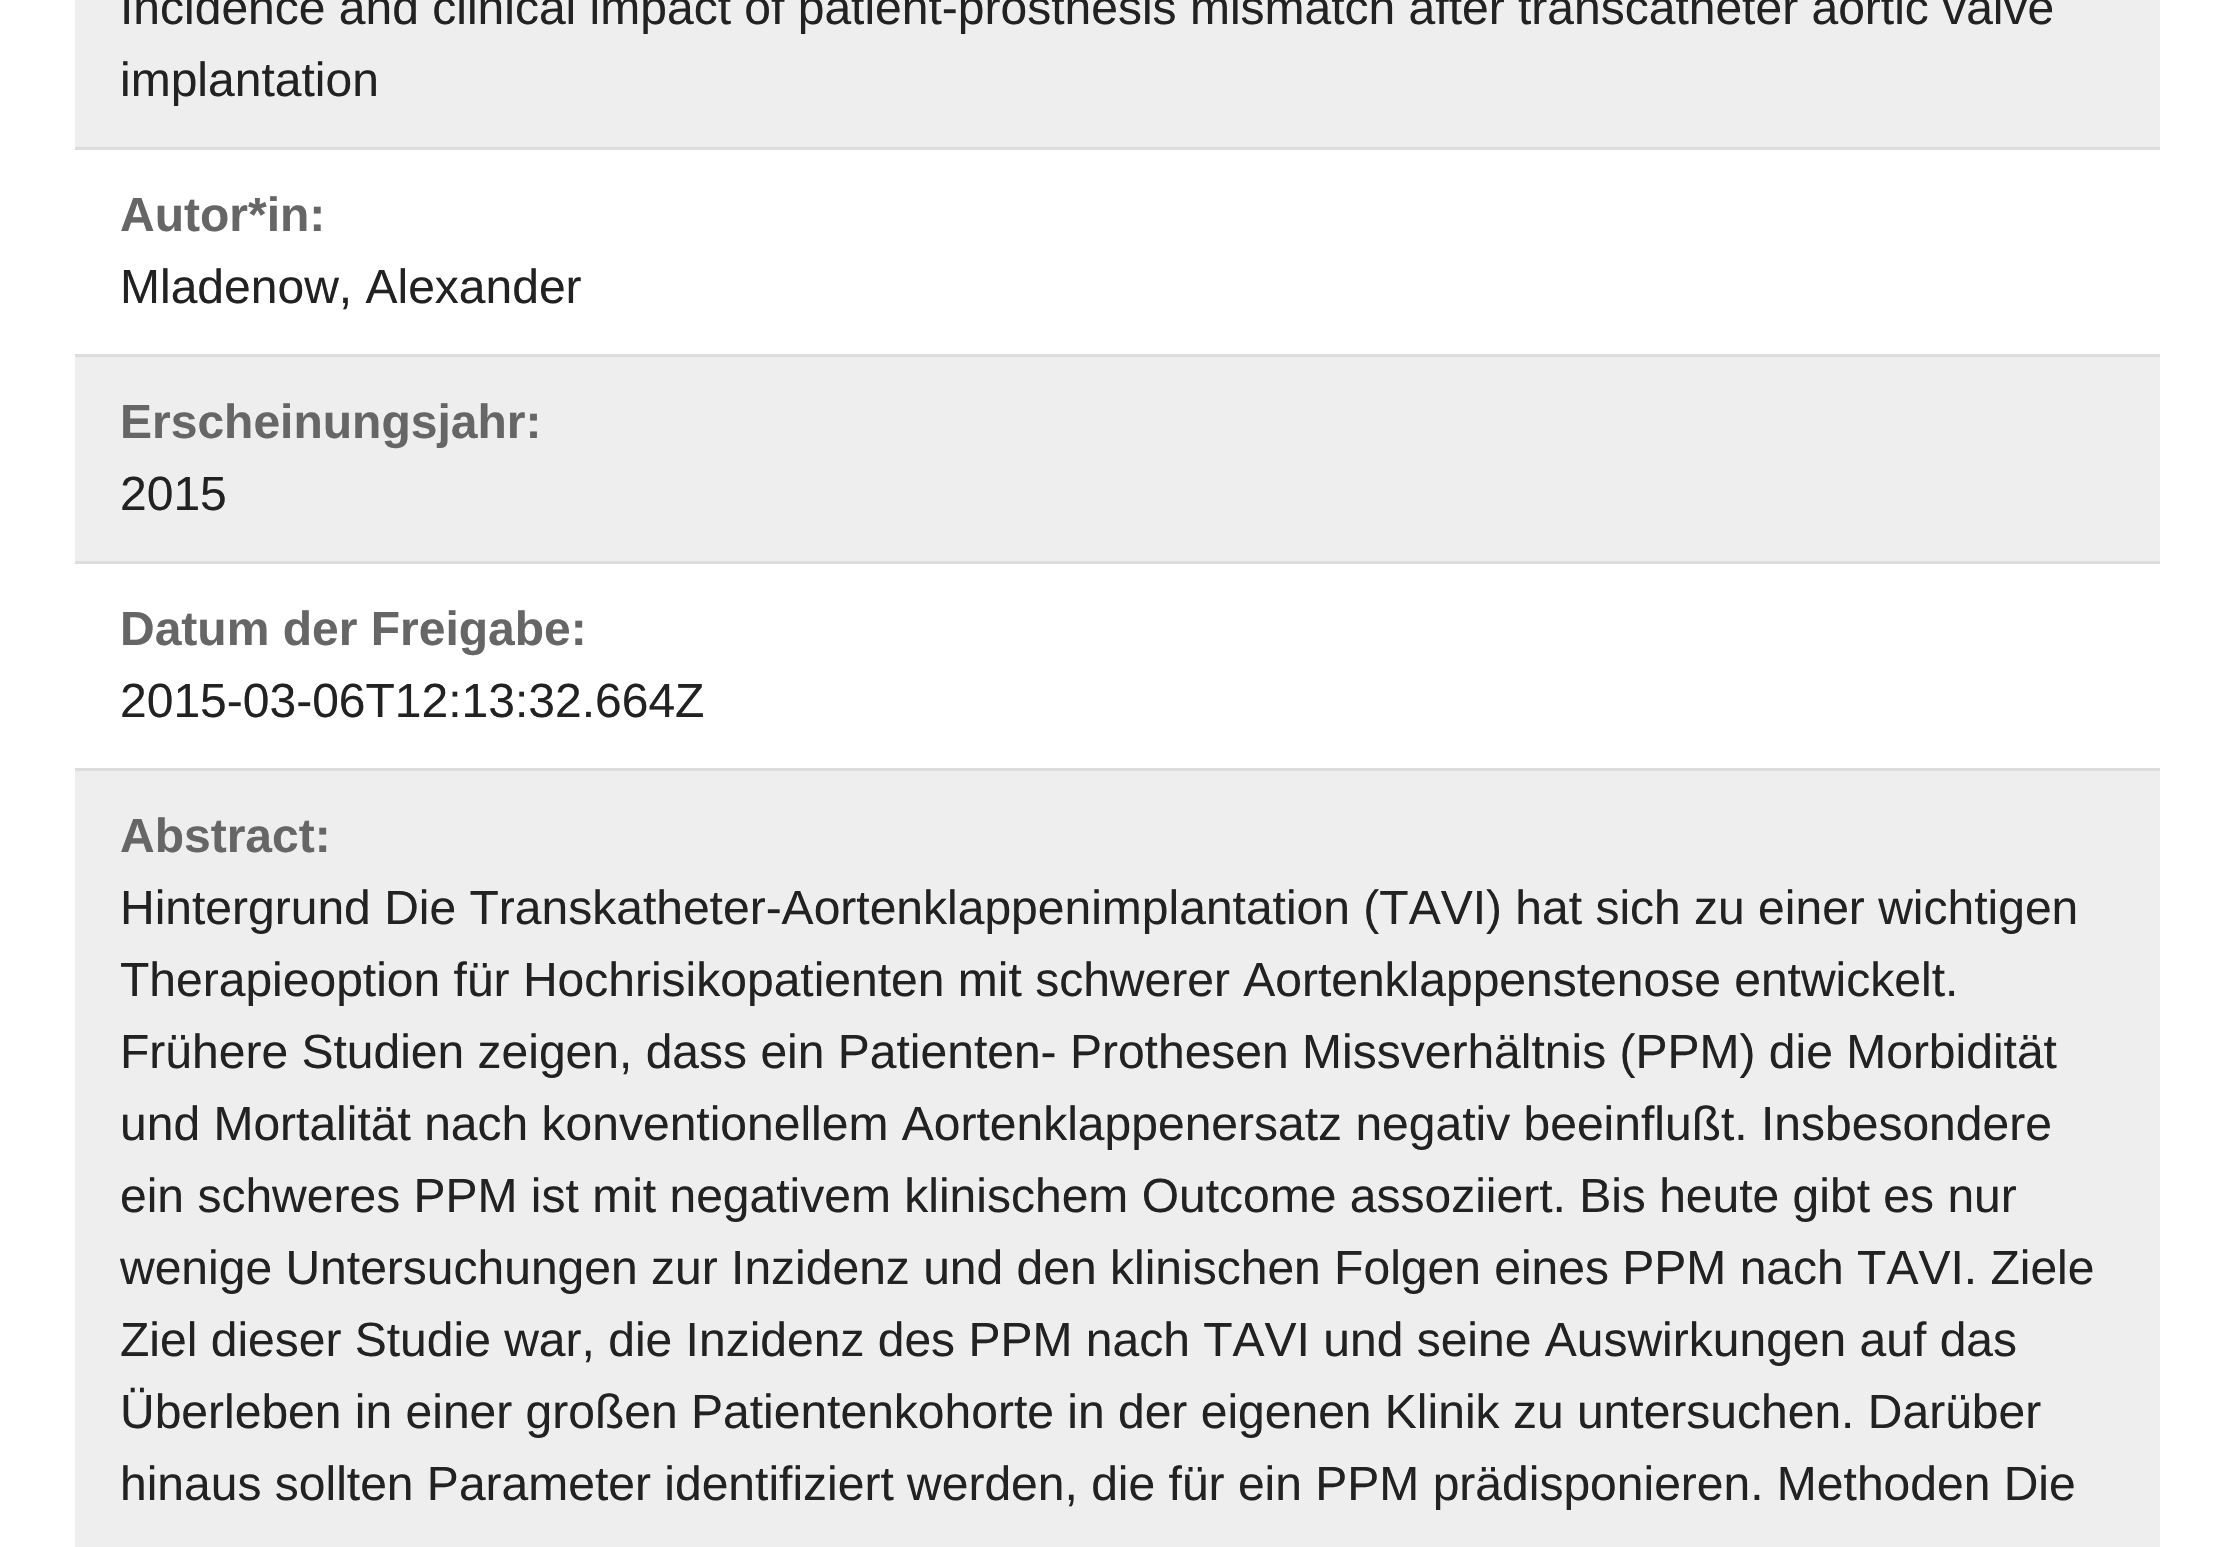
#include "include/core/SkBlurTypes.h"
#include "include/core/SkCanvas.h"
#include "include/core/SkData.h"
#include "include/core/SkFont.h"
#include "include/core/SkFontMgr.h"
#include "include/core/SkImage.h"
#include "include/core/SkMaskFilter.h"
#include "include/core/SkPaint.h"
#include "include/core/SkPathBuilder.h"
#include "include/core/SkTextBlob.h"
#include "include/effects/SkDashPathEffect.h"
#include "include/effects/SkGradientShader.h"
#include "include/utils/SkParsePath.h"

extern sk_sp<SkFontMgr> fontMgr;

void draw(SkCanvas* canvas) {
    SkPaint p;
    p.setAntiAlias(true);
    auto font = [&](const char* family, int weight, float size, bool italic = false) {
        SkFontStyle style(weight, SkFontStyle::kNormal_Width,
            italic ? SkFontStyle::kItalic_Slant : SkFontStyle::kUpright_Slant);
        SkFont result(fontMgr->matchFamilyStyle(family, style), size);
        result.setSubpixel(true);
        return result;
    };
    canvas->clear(0xFFFFFFFF);
    p.setColor(0xFFEEEEEE);
    canvas->drawRect(SkRect::MakeLTRB(75, 0, 2160, 147), p);
    auto font1 = font("Liberation Sans", 400, 48);
    p.setColor(0xFF222222);
    canvas->drawString("Incidence and clinical impact of patient-prosthesis mismatch after transcatheter aortic valve", 120, 24, font1, p);
    canvas->drawString("implantation", 120, 96, font1, p);
    p.setColor(0xFFDDDDDD);
    canvas->drawRect(SkRect::MakeLTRB(75, 147, 2160, 150), p);
    auto font2 = font("Liberation Sans", 700, 48);
    p.setColor(0xFF666666);
    canvas->drawString("Autor*in:", 120, 231, font2, p);
    p.setColor(0xFF222222);
    canvas->drawString("Mladenow, Alexander", 120, 303, font1, p);
    p.setColor(0xFFEEEEEE);
    canvas->drawRect(SkRect::MakeLTRB(75, 357, 2160, 561), p);
    p.setColor(0xFFDDDDDD);
    canvas->drawRect(SkRect::MakeLTRB(75, 354, 2160, 357), p);
    p.setColor(0xFF666666);
    canvas->drawString("Erscheinungsjahr:", 120, 438, font2, p);
    p.setColor(0xFF222222);
    canvas->drawString("2015", 120, 510, font1, p);
    p.setColor(0xFFDDDDDD);
    canvas->drawRect(SkRect::MakeLTRB(75, 561, 2160, 564), p);
    p.setColor(0xFF666666);
    canvas->drawString("Datum der Freigabe:", 120, 645, font2, p);
    p.setColor(0xFF222222);
    canvas->drawString("2015-03-06T12:13:32.664Z", 120, 717, font1, p);
    p.setColor(0xFFEEEEEE);
    canvas->drawRect(SkRect::MakeLTRB(75, 771, 2160, 1547), p);
    p.setColor(0xFFDDDDDD);
    canvas->drawRect(SkRect::MakeLTRB(75, 768, 2160, 771), p);
    p.setColor(0xFF666666);
    canvas->drawString("Abstract:", 120, 852, font2, p);
    p.setColor(0xFF222222);
    {
        const struct { const char* s; float x, y; } items[] = {
            {"Hintergrund Die Transkatheter-Aortenklappenimplantation (TAVI) hat sich zu einer wichtigen", 120, 924},
            {"Therapieoption für Hochrisikopatienten mit schwerer Aortenklappenstenose entwickelt.", 120, 996},
            {"Frühere Studien zeigen, dass ein Patienten- Prothesen Missverhältnis (PPM) die Morbidität", 120, 1068},
            {"und Mortalität nach konventionellem Aortenklappenersatz negativ beeinflußt. Insbesondere", 120, 1140},
            {"ein schweres PPM ist mit negativem klinischem Outcome assoziiert. Bis heute gibt es nur", 120, 1212},
            {"wenige Untersuchungen zur Inzidenz und den klinischen Folgen eines PPM nach TAVI. Ziele", 120, 1284},
            {"Ziel dieser Studie war, die Inzidenz des PPM nach TAVI und seine Auswirkungen auf das", 120, 1356},
            {"Überleben in einer großen Patientenkohorte in der eigenen Klinik zu untersuchen. Darüber", 120, 1428},
            {"hinaus sollten Parameter identifiziert werden, die für ein PPM prädisponieren. Methoden Die", 120, 1500},
        };
        for (auto [s, x, y] : items) {
            canvas->drawString(s, x, y, font1, p);
        }
    }
}
